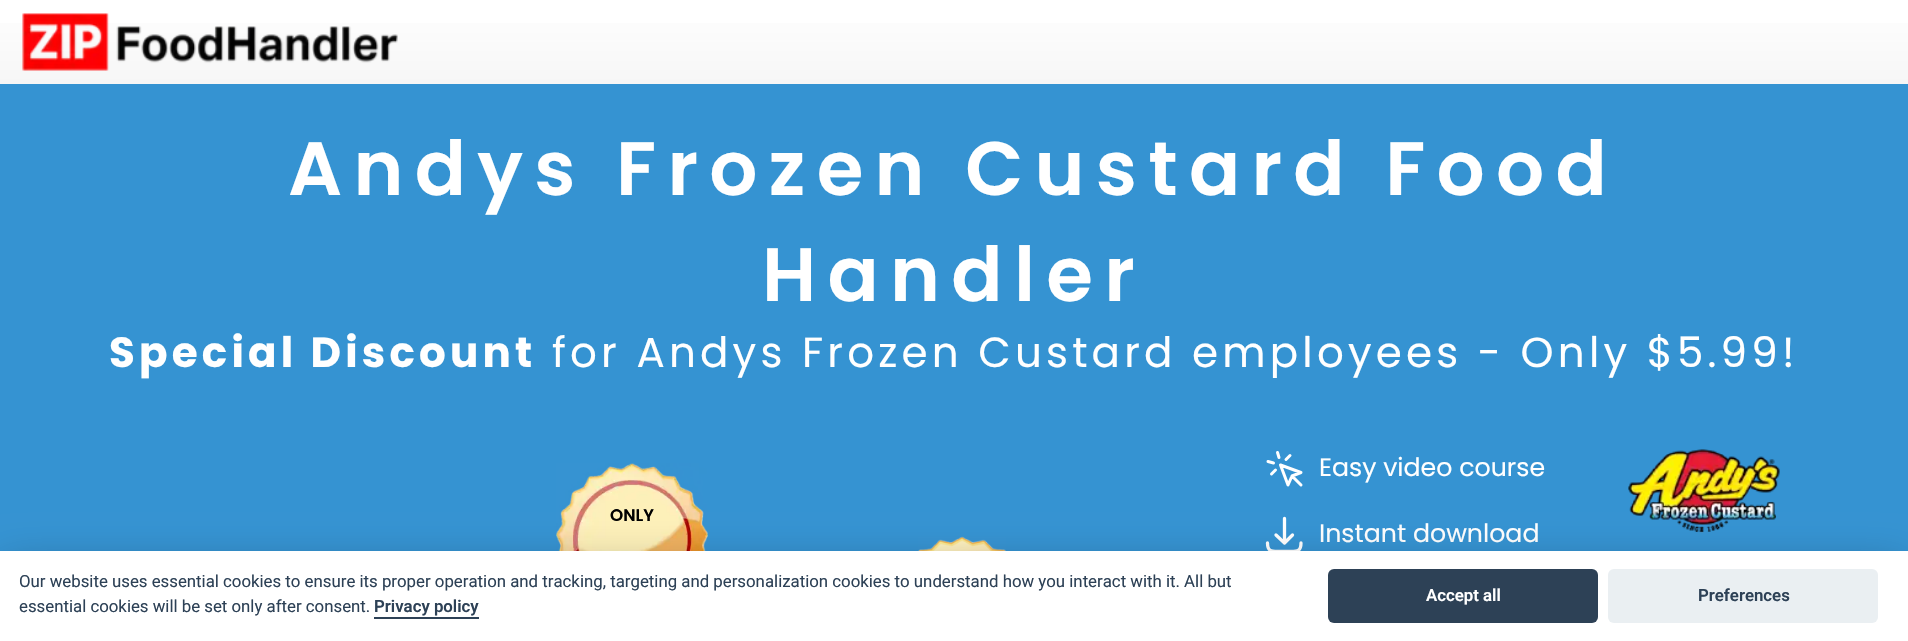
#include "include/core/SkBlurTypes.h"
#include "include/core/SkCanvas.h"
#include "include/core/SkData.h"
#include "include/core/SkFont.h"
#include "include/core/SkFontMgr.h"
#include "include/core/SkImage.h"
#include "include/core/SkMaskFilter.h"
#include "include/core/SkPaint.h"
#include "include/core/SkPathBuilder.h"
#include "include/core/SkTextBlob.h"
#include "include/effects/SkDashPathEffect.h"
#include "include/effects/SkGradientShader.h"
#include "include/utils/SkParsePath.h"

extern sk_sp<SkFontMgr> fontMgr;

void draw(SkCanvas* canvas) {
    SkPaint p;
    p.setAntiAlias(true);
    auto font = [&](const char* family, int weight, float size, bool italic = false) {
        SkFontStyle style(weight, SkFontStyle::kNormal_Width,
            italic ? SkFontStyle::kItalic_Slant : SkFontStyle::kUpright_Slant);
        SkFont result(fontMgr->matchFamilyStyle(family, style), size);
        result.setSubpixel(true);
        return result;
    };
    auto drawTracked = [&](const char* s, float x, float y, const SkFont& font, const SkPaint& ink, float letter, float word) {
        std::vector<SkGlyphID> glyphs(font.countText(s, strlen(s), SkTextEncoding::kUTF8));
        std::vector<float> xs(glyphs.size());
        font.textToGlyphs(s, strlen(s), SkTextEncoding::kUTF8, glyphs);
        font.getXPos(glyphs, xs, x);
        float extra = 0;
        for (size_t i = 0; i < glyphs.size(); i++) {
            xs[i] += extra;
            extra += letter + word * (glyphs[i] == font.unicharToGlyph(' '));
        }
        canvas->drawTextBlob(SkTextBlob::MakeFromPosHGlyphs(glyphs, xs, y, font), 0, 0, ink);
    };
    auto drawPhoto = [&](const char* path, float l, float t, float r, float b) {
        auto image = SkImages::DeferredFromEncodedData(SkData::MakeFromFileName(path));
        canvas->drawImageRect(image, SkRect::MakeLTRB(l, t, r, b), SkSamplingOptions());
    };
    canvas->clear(0xFFFFFFFF);
    {
        const SkColor colors[] = {0xFFFFFFFF, 0xFFF6F6F6};
        const float stops[] = {0, 1};
        const SkPoint ends[] = {{954, 0}, {954, 84}};
        p.setShader(SkGradientShader::MakeLinear(ends, colors, stops, 2, SkTileMode::kClamp));
        p.setAlpha(255);
    }
    canvas->drawRect(SkRect::MakeLTRB(0, 23, 1908, 84), p);
    drawPhoto("media/1.png", 22, 13, 398, 71);
    {
        const SkColor colors[] = {0xFF3593D2, 0xFF3593D2, 0xFF2D91D6, 0xFF2490D9, 0xFF1B8EDD, 0xFF068AE5, 0xFF0685EC, 0xFF1D7FF2, 0xFF3478F6};
        const float stops[] = {0, 0.36f, 0.45f, 0.55f, 0.64f, 0.73f, 0.82f, 0.91f, 1};
        const SkPoint ends[] = {{954, 84}, {954, 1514}};
        p.setShader(SkGradientShader::MakeLinear(ends, colors, stops, 9, SkTileMode::kClamp));
        p.setAlpha(255);
    }
    canvas->drawRect(SkRect::MakeLTRB(0, 84, 1908, 551), p);
    auto font1 = font("Poppins", 600, 75.6f);
    p.setShader(nullptr);
    p.setColor(0xFFFFFFFF);
    drawTracked("Andys Frozen Custard Food", 288, 195, font1, p, 11.3f, 0);
    drawTracked("Handler", 762, 301, font1, p, 11.3f, 0);
    auto font2 = font("Poppins", 700, 42);
    drawTracked("Special Discount", 109, 367, font2, p, 4.2f, 0);
    auto font3 = font("Poppins", 400, 42);
    drawTracked("for Andys Frozen Custard employees - Only $5.99!", 552, 367, font3, p, 4.2f, 0);
    drawPhoto("media/2.png", 556, 463, 708, 551);
    auto font4 = font("Poppins", 600, 16.8f);
    p.setColor(0xFF000000);
    canvas->drawString("ONLY", 610, 521, font4, p);
    drawPhoto("media/3.png", 918, 536, 1006, 551);
    p.setStyle(SkPaint::kStroke_Style);
    p.setStrokeWidth(3);
    p.setStrokeCap(SkPaint::kRound_Cap);
    p.setStrokeJoin(SkPaint::kRound_Join);
    p.setColor(0xFFFFFFFF);
    canvas->drawPath(SkPathBuilder().moveTo(1292, 476).lineTo(1288, 485).lineTo(1280.5f, 465).lineTo(1301, 472.5f).close().moveTo(1292, 476).lineTo(1301, 485).moveTo(1277.5f, 452.5f).lineTo(1279, 457.5f).moveTo(1273.5f, 463).lineTo(1268, 461.5f).moveTo(1290, 455.5f).lineTo(1286, 459.5f).moveTo(1275.5f, 470).lineTo(1271.5f, 474).detach(), p);
    auto font5 = font("Poppins", 400, 25.25f);
    p.setStyle(SkPaint::kFill_Style);
    canvas->drawString("Easy video course", 1319, 476, font5, p);
    p.setStyle(SkPaint::kStroke_Style);
    p.setStrokeWidth(3.3f);
    canvas->drawPath(SkPathBuilder().moveTo(1267.5f, 543).cubicTo(1267.5f, 550.5f, 1270.5f, 551.5f, 1277.5f, 551.5f).lineTo(1291, 551.5f).cubicTo(1298, 551.5f, 1301, 550.5f, 1301, 543).moveTo(1292.5f, 535).lineTo(1284.5f, 543).moveTo(1284.5f, 543).lineTo(1276, 535).moveTo(1284.5f, 543).lineTo(1284.5f, 518.5f).detach(), p);
    p.setStyle(SkPaint::kFill_Style);
    canvas->drawString("Instant download", 1319, 542, font5, p);
    drawPhoto("media/4.png", 1628, 449, 1780, 533);
    p.setColor(0x47020203);
    p.setMaskFilter(SkMaskFilter::MakeBlur(kNormal_SkBlurStyle, 22.5f));
    canvas->drawRect(SkRect::MakeLTRB(0, 566, 1908, 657), p);
    p.setMaskFilter(nullptr);
    p.setColor(0xFFFFFFFF);
    canvas->drawRect(SkRect::MakeLTRB(0, 551, 1908, 641), p);
    auto font6 = font("Roboto", 400, 16.8f);
    p.setColor(0xFF2D4156);
    canvas->drawString("Our website uses essential cookies to ensure its proper operation and tracking, targeting and personalization cookies to understand how you interact with it. All but", 19, 587, font6, p);
    canvas->drawString("essential cookies will be set only after consent.", 19, 612, font6, p);
    auto font7 = font("Roboto", 600, 16.8f);
    canvas->drawString("Privacy policy", 374, 612, font7, p);
    canvas->drawRect(SkRect::MakeLTRB(374, 617, 479, 619), p);
    canvas->drawRoundRect(SkRect::MakeLTRB(1328, 569, 1598, 623), 6, 6, p);
    p.setColor(0xFFFFFFFF);
    canvas->drawString("Accept all", 1426, 601, font7, p);
    p.setColor(0xFFEAEFF2);
    canvas->drawRoundRect(SkRect::MakeLTRB(1608, 569, 1878, 623), 6, 6, p);
    p.setColor(0xFF2D4156);
    canvas->drawString("Preferences", 1698, 601, font7, p);
}
